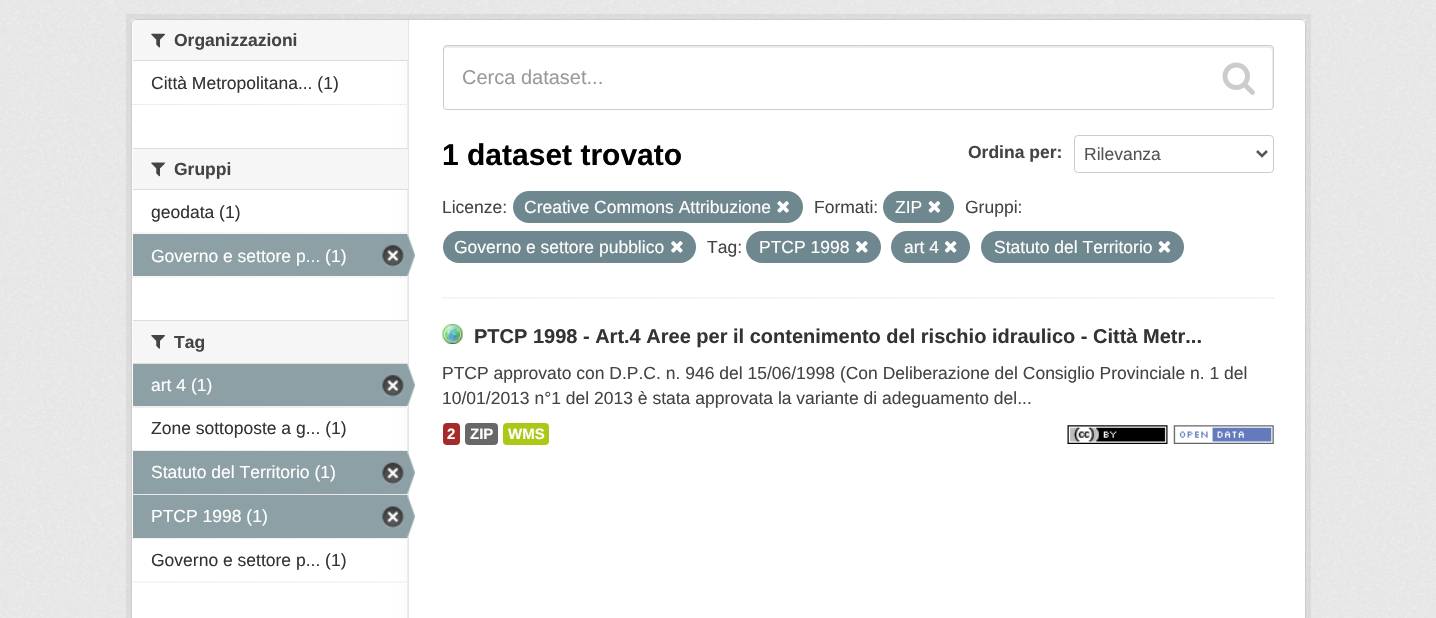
#include "include/core/SkBlurTypes.h"
#include "include/core/SkCanvas.h"
#include "include/core/SkData.h"
#include "include/core/SkFont.h"
#include "include/core/SkFontMgr.h"
#include "include/core/SkImage.h"
#include "include/core/SkMaskFilter.h"
#include "include/core/SkPaint.h"
#include "include/core/SkPathBuilder.h"
#include "include/core/SkTextBlob.h"
#include "include/effects/SkDashPathEffect.h"
#include "include/effects/SkGradientShader.h"
#include "include/utils/SkParsePath.h"

extern sk_sp<SkFontMgr> fontMgr;

void draw(SkCanvas* canvas) {
    SkPaint p;
    p.setAntiAlias(true);
    auto font = [&](const char* family, int weight, float size, bool italic = false) {
        SkFontStyle style(weight, SkFontStyle::kNormal_Width,
            italic ? SkFontStyle::kItalic_Slant : SkFontStyle::kUpright_Slant);
        SkFont result(fontMgr->matchFamilyStyle(family, style), size);
        result.setSubpixel(true);
        return result;
    };
    auto drawPhoto = [&](const char* path, float l, float t, float r, float b) {
        auto image = SkImages::DeferredFromEncodedData(SkData::MakeFromFileName(path));
        canvas->drawImageRect(image, SkRect::MakeLTRB(l, t, r, b), SkSamplingOptions());
    };
    canvas->clear(0xFFEEEEEE);
    drawPhoto("media/1.png", 0, 0, 1436, 618);
    p.setStyle(SkPaint::kStroke_Style);
    p.setStrokeWidth(5);
    p.setColor(0x0D000000);
    canvas->drawRect(SkRect::MakeLTRB(128.5f, 16.5f, 1308.5f, 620.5f), p);
    p.setStyle(SkPaint::kFill_Style);
    p.setColor(0xFFFFFFFF);
    canvas->drawRoundRect(SkRect::MakeLTRB(131, 19, 1306, 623), 5, 5, p);
    drawPhoto("media/2.png", 134, 19, 409, 618);
    p.setStyle(SkPaint::kStroke_Style);
    p.setStrokeWidth(1);
    p.setColor(0xFFCCCCCC);
    canvas->drawRoundRect(SkRect::MakeLTRB(131.5f, 19.5f, 1305.5f, 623.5f), 4.5f, 4.5f, p);
    p.setStyle(SkPaint::kFill_Style);
    p.setColor(0xFFF6F6F6);
    canvas->drawPath(SkPathBuilder().moveTo(137, 20).lineTo(408, 20).lineTo(408, 61).lineTo(133, 61).lineTo(133, 24).cubicTo(133, 22, 135, 20, 137, 20).close().detach(), p);
    p.setColor(0xFFDDDDDD);
    canvas->drawRect(SkRect::MakeLTRB(133, 60, 408, 61), p);
    drawPhoto("media/3.png", 151, 33, 165, 48);
    auto font1 = font("Liberation Sans", 700, 17.5f);
    p.setColor(0xFF444444);
    canvas->drawString("Organizzazioni", 174, 46, font1, p);
    auto font2 = font("Liberation Sans", 400, 17.5f);
    p.setColor(0xFF333333);
    canvas->drawString("Città Metropolitana... (1)", 151, 89, font2, p);
    p.setStyle(SkPaint::kStroke_Style);
    p.setStrokeWidth(1.2f);
    p.setColor(0xFFDDDDDD);
    p.setPathEffect(SkDashPathEffect::Make({{1.25f, 1.25f}}, 0));
    canvas->drawPath(SkPathBuilder().moveTo(132.5f, 104.5f).lineTo(407.5f, 104.5f).detach(), p);
    p.setPathEffect(nullptr);
    p.setStyle(SkPaint::kFill_Style);
    {
        const struct { float l, t, r, b; SkColor color; } items[] = {
            {133, 149, 408, 189, 0xFFF6F6F6},
            {133, 148, 408, 149, 0xFFDDDDDD},
            {133, 189, 408, 190, 0xFFDDDDDD},
        };
        for (auto [l, t, r, b, color] : items) {
            p.setColor(color);
            canvas->drawRect(SkRect::MakeLTRB(l, t, r, b), p);
        }
    }
    drawPhoto("media/4.png", 151, 162, 165, 177);
    p.setColor(0xFF444444);
    canvas->drawString("Gruppi", 174, 175, font1, p);
    p.setStyle(SkPaint::kStroke_Style);
    p.setColor(0xFFDDDDDD);
    p.setPathEffect(SkDashPathEffect::Make({{1.25f, 1.25f}}, 0));
    canvas->drawPath(SkPathBuilder().moveTo(132.5f, 233).lineTo(407.5f, 233).detach(), p);
    p.setPathEffect(nullptr);
    p.setStyle(SkPaint::kFill_Style);
    p.setColor(0xFF333333);
    canvas->drawString("geodata (1)", 151, 218, font2, p);
    p.setColor(0xFF8CA0A6);
    canvas->drawRect(SkRect::MakeLTRB(133, 234, 408, 276), p);
    p.setColor(0xFFFFFFFF);
    canvas->drawString("Governo e settore p... (1)", 151, 262, font2, p);
    drawPhoto("media/5.png", 382, 245, 404, 267);
    drawPhoto("media/6.png", 407, 234, 415, 276);
    p.setStyle(SkPaint::kStroke_Style);
    p.setColor(0xFFDDDDDD);
    p.setPathEffect(SkDashPathEffect::Make({{1.25f, 1.25f}}, 0));
    canvas->drawPath(SkPathBuilder().moveTo(132.5f, 277).lineTo(407.5f, 277).detach(), p);
    p.setPathEffect(nullptr);
    p.setStyle(SkPaint::kFill_Style);
    {
        const struct { float l, t, r, b; SkColor color; } items[] = {
            {133, 321, 408, 363, 0xFFF6F6F6},
            {133, 320, 408, 321, 0xFFDDDDDD},
            {133, 363, 408, 364, 0xFFDDDDDD},
        };
        for (auto [l, t, r, b, color] : items) {
            p.setColor(color);
            canvas->drawRect(SkRect::MakeLTRB(l, t, r, b), p);
        }
    }
    drawPhoto("media/7.png", 151, 335, 165, 349);
    p.setColor(0xFF444444);
    canvas->drawString("Tag", 174, 348, font1, p);
    p.setColor(0xFFF6F6F6);
    canvas->drawRect(SkRect::MakeLTRB(133, 406, 408, 408), p);
    p.setStyle(SkPaint::kStroke_Style);
    p.setColor(0xFFDDDDDD);
    p.setPathEffect(SkDashPathEffect::Make({{1.25f, 1.25f}}, 0));
    canvas->drawPath(SkPathBuilder().moveTo(132.5f, 407).lineTo(407.5f, 407).detach(), p);
    p.setPathEffect(nullptr);
    p.setStyle(SkPaint::kFill_Style);
    p.setColor(0xFF8CA0A6);
    canvas->drawRect(SkRect::MakeLTRB(133, 364, 408, 406), p);
    p.setColor(0xFFFFFFFF);
    canvas->drawString("art 4 (1)", 151, 391, font2, p);
    drawPhoto("media/5.png", 382, 375, 404, 397);
    drawPhoto("media/6.png", 407, 364, 415, 406);
    p.setStyle(SkPaint::kStroke_Style);
    p.setColor(0xFFDDDDDD);
    p.setPathEffect(SkDashPathEffect::Make({{1.25f, 1.25f}}, 0));
    canvas->drawPath(SkPathBuilder().moveTo(132.5f, 450.5f).lineTo(407.5f, 450.5f).detach(), p);
    p.setPathEffect(nullptr);
    p.setStyle(SkPaint::kFill_Style);
    p.setColor(0xFF333333);
    canvas->drawString("Zone sottoposte a g... (1)", 151, 434, font2, p);
    p.setColor(0xFFF6F6F6);
    canvas->drawRect(SkRect::MakeLTRB(133, 494, 408, 495), p);
    p.setStyle(SkPaint::kStroke_Style);
    p.setColor(0xFFDDDDDD);
    p.setPathEffect(SkDashPathEffect::Make({{1.25f, 1.25f}}, 0));
    canvas->drawPath(SkPathBuilder().moveTo(132.5f, 494.5f).lineTo(407.5f, 494.5f).detach(), p);
    p.setPathEffect(nullptr);
    p.setStyle(SkPaint::kFill_Style);
    p.setColor(0xFF8CA0A6);
    canvas->drawRect(SkRect::MakeLTRB(133, 451, 408, 494), p);
    p.setColor(0xFFFFFFFF);
    canvas->drawString("Statuto del Territorio (1)", 151, 478, font2, p);
    drawPhoto("media/8.png", 382, 462, 404, 484);
    drawPhoto("media/9.png", 407, 451, 415, 494);
    p.setColor(0xFFF6F6F6);
    canvas->drawRect(SkRect::MakeLTRB(133, 538, 408, 539), p);
    p.setStyle(SkPaint::kStroke_Style);
    p.setColor(0xFFDDDDDD);
    p.setPathEffect(SkDashPathEffect::Make({{1.25f, 1.25f}}, 0));
    canvas->drawPath(SkPathBuilder().moveTo(132.5f, 538).lineTo(407.5f, 538).detach(), p);
    p.setPathEffect(nullptr);
    p.setStyle(SkPaint::kFill_Style);
    p.setColor(0xFF8CA0A6);
    canvas->drawRect(SkRect::MakeLTRB(133, 495, 408, 538), p);
    p.setColor(0xFFFFFFFF);
    canvas->drawString("PTCP 1998 (1)", 151, 522, font2, p);
    drawPhoto("media/10.png", 382, 506, 404, 528);
    drawPhoto("media/11.png", 407, 495, 415, 538);
    p.setColor(0xFF333333);
    canvas->drawString("Governo e settore p... (1)", 151, 566, font2, p);
    p.setStyle(SkPaint::kStroke_Style);
    p.setColor(0xFFDDDDDD);
    p.setPathEffect(SkDashPathEffect::Make({{1.25f, 1.25f}}, 0));
    canvas->drawPath(SkPathBuilder().moveTo(132.5f, 582).lineTo(407.5f, 582).detach(), p);
    p.setPathEffect(nullptr);
    p.setPathEffect(SkDashPathEffect::Make({{1.25f, 1.25f}}, 0));
    canvas->drawPath(SkPathBuilder().moveTo(442.5f, 298).lineTo(1274, 298).detach(), p);
    p.setPathEffect(nullptr);
    p.setStyle(SkPaint::kFill_Style);
    p.setColor(0xFFECECEC);
    canvas->drawPath(SkPathBuilder().moveTo(446, 48).lineTo(1270, 48).cubicTo(1271, 48, 1272, 49, 1272, 50).lineTo(1272, 109).cubicTo(1273, 108, 1273, 107, 1273, 106).lineTo(1273, 48).cubicTo(1273, 47, 1272, 46, 1270, 46).lineTo(446, 46).cubicTo(445, 46, 444, 47, 444, 48).lineTo(444, 50).cubicTo(444, 49, 445, 48, 446, 48).close().detach(), p);
    p.setStyle(SkPaint::kStroke_Style);
    p.setStrokeWidth(1);
    p.setColor(0xFFCCCCCC);
    canvas->drawRoundRect(SkRect::MakeLTRB(443.5f, 45.5f, 1273.5f, 109.5f), 3.5f, 3.5f, p);
    auto font3 = font("Liberation Sans", 400, 20);
    p.setStyle(SkPaint::kFill_Style);
    p.setColor(0xFF999999);
    canvas->drawString("Cerca dataset...", 462, 84, font3, p);
    drawPhoto("media/12.png", 1222, 62, 1255, 95);
    auto font4 = font("Liberation Sans", 700, 30);
    p.setColor(0xFF000000);
    canvas->drawString("1 dataset trovato", 442, 165, font4, p);
    p.setColor(0xFF444444);
    canvas->drawString("Ordina per:", 968, 158, font1, p);
    p.setStyle(SkPaint::kStroke_Style);
    p.setColor(0xFFCCCCCC);
    canvas->drawRoundRect(SkRect::MakeLTRB(1074.5f, 135.5f, 1273.5f, 172.5f), 3.5f, 3.5f, p);
    p.setStrokeWidth(2.5f);
    p.setColor(0xFF555555);
    canvas->drawPath(SkPathBuilder().moveTo(1257, 151).lineTo(1262, 156).lineTo(1267, 151).detach(), p);
    p.setStyle(SkPaint::kFill_Style);
    canvas->drawString("Rilevanza", 1084, 160, font2, p);
    p.setColor(0xFF444444);
    canvas->drawString("Licenze:", 442, 213, font2, p);
    p.setColor(0xFF6F8890);
    canvas->drawRoundRect(SkRect::MakeLTRB(513, 191, 803, 223), 16, 16, p);
    p.setColor(0xFFFFFFFF);
    canvas->drawString("Creative Commons Attribuzione", 524, 213, font2, p);
    drawPhoto("media/13.png", 777, 201, 789, 213);
    p.setColor(0xFF444444);
    canvas->drawString("Formati:", 814, 213, font2, p);
    p.setColor(0xFF6F8890);
    canvas->drawRoundRect(SkRect::MakeLTRB(883, 191, 954, 223), 16, 16, p);
    p.setColor(0xFFFFFFFF);
    canvas->drawString("ZIP", 895, 213, font2, p);
    drawPhoto("media/14.png", 928, 201, 941, 213);
    p.setColor(0xFF444444);
    canvas->drawString("Gruppi:", 965, 213, font2, p);
    p.setColor(0xFF6F8890);
    canvas->drawRoundRect(SkRect::MakeLTRB(443, 231, 696, 263), 16, 16, p);
    p.setColor(0xFFFFFFFF);
    canvas->drawString("Governo e settore pubblico", 454, 253, font2, p);
    drawPhoto("media/15.png", 671, 241, 683, 253);
    p.setColor(0xFF444444);
    canvas->drawString("Tag:", 707, 253, font2, p);
    p.setColor(0xFF6F8890);
    canvas->drawRoundRect(SkRect::MakeLTRB(746, 231, 881, 263), 16, 16, p);
    p.setColor(0xFFFFFFFF);
    canvas->drawString("PTCP 1998", 759, 253, font2, p);
    drawPhoto("media/15.png", 856, 241, 868, 253);
    p.setColor(0xFF6F8890);
    canvas->drawRoundRect(SkRect::MakeLTRB(891, 231, 970, 263), 16, 16, p);
    p.setColor(0xFFFFFFFF);
    canvas->drawString("art 4", 904, 253, font2, p);
    drawPhoto("media/16.png", 944, 241, 957, 253);
    p.setColor(0xFF6F8890);
    canvas->drawRoundRect(SkRect::MakeLTRB(981, 231, 1184, 263), 16, 16, p);
    p.setColor(0xFFFFFFFF);
    canvas->drawString("Statuto del Territorio", 994, 253, font2, p);
    drawPhoto("media/14.png", 1158, 241, 1171, 253);
    drawPhoto("media/17.png", 442, 324, 463, 344);
    auto font5 = font("Liberation Sans", 700, 20);
    p.setColor(0xFF333333);
    canvas->drawString("PTCP 1998 - Art.4 Aree per il contenimento del rischio idraulico - Città Metr...", 474, 343, font5, p);
    p.setColor(0xFF444444);
    canvas->drawString("PTCP approvato con D.P.C. n. 946 del 15/06/1998 (Con Deliberazione del Consiglio Provinciale n. 1 del", 442, 379, font2, p);
    canvas->drawString("10/01/2013 n°1 del 2013 è stata approvata la variante di adeguamento del...", 442, 404, font2, p);
    p.setColor(0xFFA52A2A);
    canvas->drawRoundRect(SkRect::MakeLTRB(443, 423, 460, 445), 4, 4, p);
    auto font6 = font("Liberation Sans", 700, 15);
    p.setColor(0xFFFFFFFF);
    canvas->drawString("2", 447, 439, font6, p);
    p.setColor(0xFF686868);
    canvas->drawRoundRect(SkRect::MakeLTRB(465, 423, 498, 445), 4, 4, p);
    p.setColor(0xFFFFFFFF);
    canvas->drawString("ZIP", 470, 439, font6, p);
    p.setColor(0xFFADC717);
    canvas->drawRoundRect(SkRect::MakeLTRB(503, 423, 549, 445), 4, 4, p);
    p.setColor(0xFFFFFFFF);
    canvas->drawString("WMS", 508, 439, font6, p);
    drawPhoto("media/18.png", 1067, 425, 1168, 444);
    drawPhoto("media/19.png", 1173, 425, 1274, 444);
}
